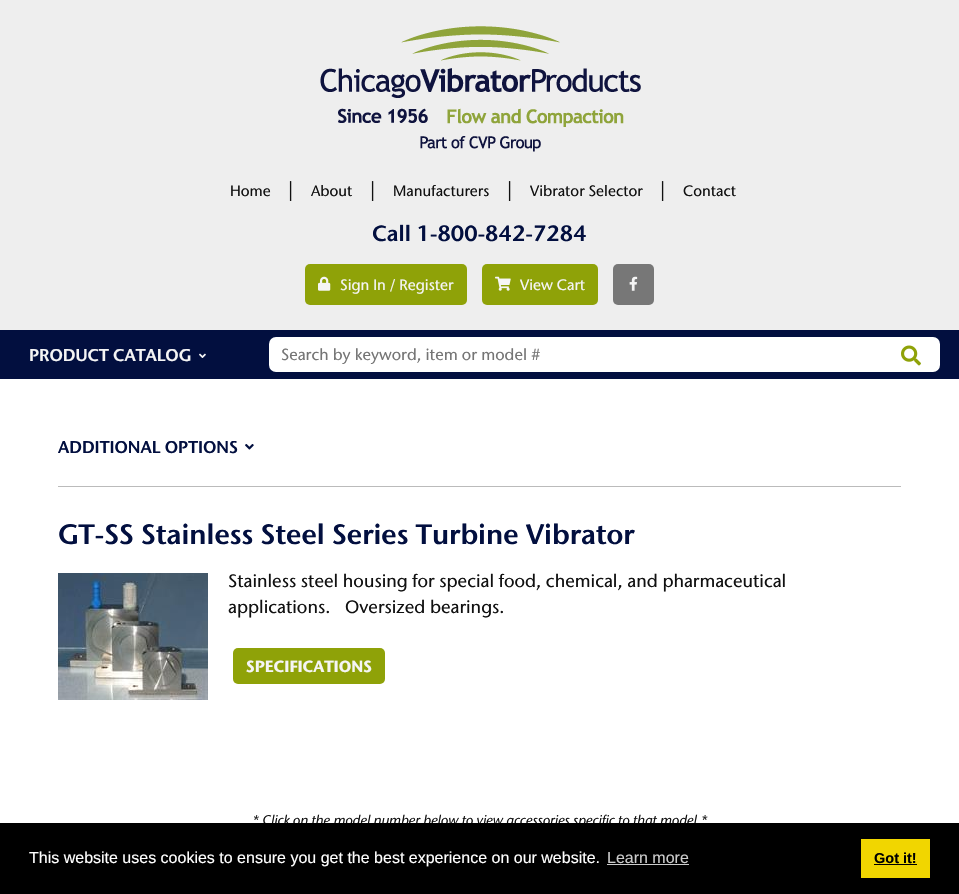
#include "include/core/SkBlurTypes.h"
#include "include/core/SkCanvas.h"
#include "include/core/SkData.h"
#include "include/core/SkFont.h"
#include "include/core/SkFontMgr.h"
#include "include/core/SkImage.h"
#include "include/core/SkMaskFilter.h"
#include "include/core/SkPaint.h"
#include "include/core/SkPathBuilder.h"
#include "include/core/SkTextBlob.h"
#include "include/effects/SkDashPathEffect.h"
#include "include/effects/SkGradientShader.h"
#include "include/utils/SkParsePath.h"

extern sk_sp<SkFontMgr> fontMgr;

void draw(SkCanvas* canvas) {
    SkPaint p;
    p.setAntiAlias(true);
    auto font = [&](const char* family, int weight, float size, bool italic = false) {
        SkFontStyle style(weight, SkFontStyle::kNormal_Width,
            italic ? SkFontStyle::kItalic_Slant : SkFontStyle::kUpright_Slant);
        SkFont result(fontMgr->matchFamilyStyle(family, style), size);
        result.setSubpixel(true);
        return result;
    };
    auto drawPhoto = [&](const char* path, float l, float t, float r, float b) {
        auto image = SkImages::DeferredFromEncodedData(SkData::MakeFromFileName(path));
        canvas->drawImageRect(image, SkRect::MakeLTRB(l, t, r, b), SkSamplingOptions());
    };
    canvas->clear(0xFFFFFFFF);
    p.setColor(0xFFEEEEEE);
    canvas->drawRect(SkRect::MakeLTRB(0, 0, 959, 330), p);
    drawPhoto("media/1.png", 320, 26, 641, 152);
    auto font1 = font("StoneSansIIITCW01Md", 500, 15);
    p.setColor(0xFF111111);
    canvas->drawString("Home", 230, 196, font1, p);
    auto font2 = font("StoneSansIIITCW01Md", 500, 20);
    canvas->drawString("|", 287, 196, font2, p);
    canvas->drawString("About", 311, 196, font1, p);
    canvas->drawString("|", 369, 196, font2, p);
    canvas->drawString("Manufacturers", 393, 196, font1, p);
    canvas->drawString("|", 506, 196, font2, p);
    canvas->drawString("Vibrator Selector", 530, 196, font1, p);
    canvas->drawString("|", 659, 196, font2, p);
    canvas->drawString("Contact", 683, 196, font1, p);
    auto font3 = font("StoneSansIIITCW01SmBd", 400, 22);
    p.setColor(0xFF020F3F);
    canvas->drawString("Call 1-800-842-7284", 372, 241, font3, p);
    p.setColor(0xFF8FA208);
    canvas->drawRoundRect(SkRect::MakeLTRB(305, 264, 467, 305), 5, 5, p);
    drawPhoto("media/2.png", 318, 276, 331, 291);
    p.setColor(0xFFF5F5F5);
    canvas->drawString("Sign In / Register", 340, 290, font1, p);
    p.setColor(0xFF8FA208);
    canvas->drawRoundRect(SkRect::MakeLTRB(482, 264, 598, 305), 5, 5, p);
    drawPhoto("media/3.png", 495, 276, 511, 291);
    canvas->drawRect(SkRect::MakeLTRB(501, 285, 511, 286), p);
    p.setColor(0xFFF5F5F5);
    canvas->drawString("View Cart", 520, 290, font1, p);
    p.setColor(0xFF777777);
    canvas->drawRoundRect(SkRect::MakeLTRB(613, 264, 654, 305), 5, 5, p);
    drawPhoto("media/4.png", 629, 276, 638, 291);
    p.setColor(0xFF020F3F);
    canvas->drawRect(SkRect::MakeLTRB(0, 330, 959, 379), p);
    auto font4 = font("StoneSansIIITCW01SmBd", 400, 17);
    p.setColor(0xFFF5F5F5);
    canvas->drawString("PRODUCT CATALOG", 29, 361, font4, p);
    drawPhoto("media/5.png", 199, 353, 206, 358);
    p.setColor(0xFFFFFFFF);
    canvas->drawRoundRect(SkRect::MakeLTRB(269, 337, 940, 372), 7, 7, p);
    auto font5 = font("StoneSansIIITCW01Md", 500, 16);
    p.setColor(0xFF757575);
    canvas->drawString("Search by keyword, item or model #", 281, 360, font5, p);
    drawPhoto("media/6.png", 901, 345, 921, 366);
    p.setColor(0xFFBBBBBB);
    canvas->drawRect(SkRect::MakeLTRB(58, 486, 901, 487), p);
    p.setColor(0xFF020F3F);
    canvas->drawString("ADDITIONAL OPTIONS", 58, 453, font4, p);
    drawPhoto("media/7.png", 245, 444, 254, 450);
    auto font6 = font("StoneSansIIITCW01SmBd", 400, 28);
    canvas->drawString("GT-SS Stainless Steel Series Turbine Vibrator", 58, 544, font6, p);
    drawPhoto("media/8.png", 58, 573, 208, 700);
    auto font7 = font("StoneSansIIITCW01Md", 500, 18);
    p.setColor(0xFF111111);
    canvas->drawString("Stainless steel housing for special food, chemical, and pharmaceutical", 228, 587, font7, p);
    canvas->drawString("applications.", 228, 613, font7, p);
    canvas->drawString("Oversized bearings.", 345, 613, font7, p);
    p.setColor(0xFF8FA208);
    canvas->drawRoundRect(SkRect::MakeLTRB(233, 648, 385, 684), 5, 5, p);
    auto font8 = font("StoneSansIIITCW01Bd", 700, 16);
    p.setColor(0xFFF5F5F5);
    canvas->drawString("SPECIFICATIONS", 246, 672, font8, p);
    auto font9 = font("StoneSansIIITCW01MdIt", 400, 14);
    p.setColor(0xFF111111);
    canvas->drawString("* Click on the model number below to view accessories specific to that model *", 252, 825, font9, p);
    p.setColor(0xFF000000);
    canvas->drawRect(SkRect::MakeLTRB(0, 823, 959, 894), p);
    auto font10 = font("Liberation Sans", 400, 16);
    p.setColor(0xFFFFFFFF);
    canvas->drawString("This website uses cookies to ensure you get the best experience on our website.", 29, 863, font10, p);
    p.setColor(0xFFCCCCCC);
    canvas->drawString("Learn more", 607, 863, font10, p);
    canvas->drawRect(SkRect::MakeLTRB(607, 864, 689, 865), p);
    p.setColor(0xFFF1D600);
    canvas->drawRect(SkRect::MakeLTRB(861, 839, 930, 878), p);
    auto font11 = font("Liberation Sans", 700, 14.5f);
    p.setColor(0xFF000000);
    canvas->drawString("Got it!", 874, 863, font11, p);
    canvas->drawRect(SkRect::MakeLTRB(874, 864, 917, 865), p);
}
